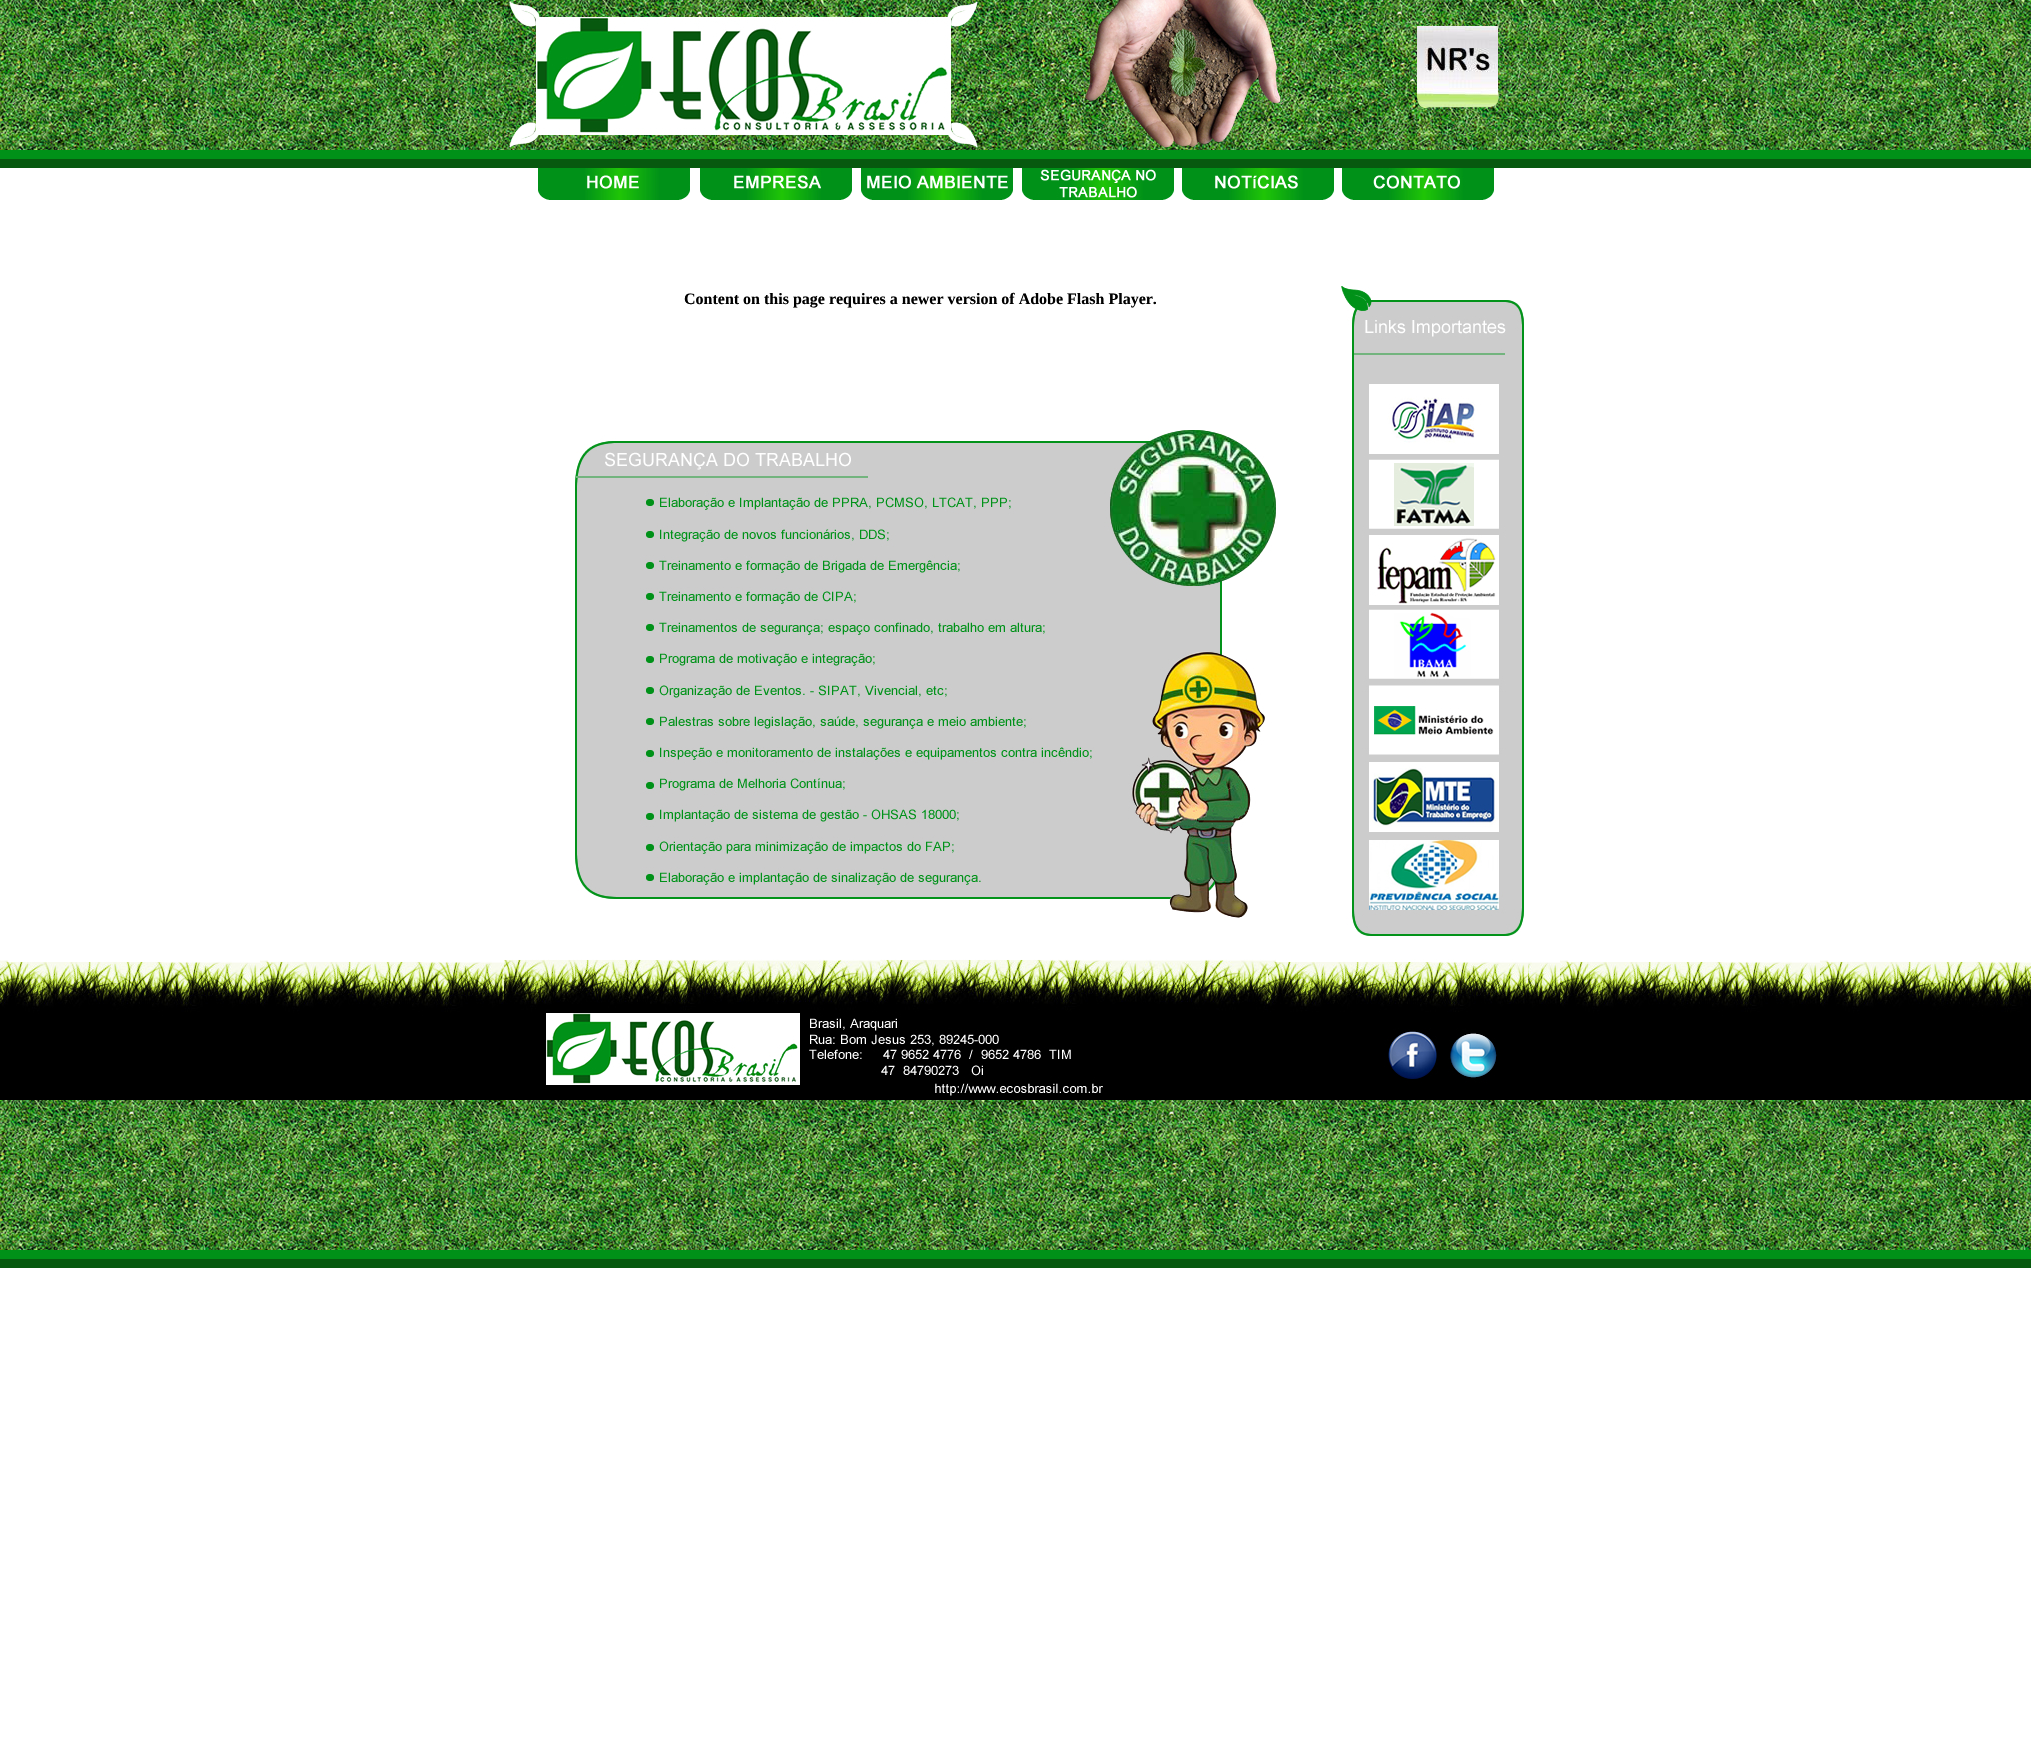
#include "include/core/SkBlurTypes.h"
#include "include/core/SkCanvas.h"
#include "include/core/SkData.h"
#include "include/core/SkFont.h"
#include "include/core/SkFontMgr.h"
#include "include/core/SkImage.h"
#include "include/core/SkMaskFilter.h"
#include "include/core/SkPaint.h"
#include "include/core/SkPathBuilder.h"
#include "include/core/SkTextBlob.h"
#include "include/effects/SkDashPathEffect.h"
#include "include/effects/SkGradientShader.h"
#include "include/utils/SkParsePath.h"

extern sk_sp<SkFontMgr> fontMgr;

void draw(SkCanvas* canvas) {
    SkPaint p;
    p.setAntiAlias(true);
    auto font = [&](const char* family, int weight, float size, bool italic = false) {
        SkFontStyle style(weight, SkFontStyle::kNormal_Width,
            italic ? SkFontStyle::kItalic_Slant : SkFontStyle::kUpright_Slant);
        SkFont result(fontMgr->matchFamilyStyle(family, style), size);
        result.setSubpixel(true);
        return result;
    };
    auto drawPhoto = [&](const char* path, float l, float t, float r, float b) {
        auto image = SkImages::DeferredFromEncodedData(SkData::MakeFromFileName(path));
        canvas->drawImageRect(image, SkRect::MakeLTRB(l, t, r, b), SkSamplingOptions());
    };
    canvas->clear(0xFFFFFFFF);
    drawPhoto("media/1.png", 0, 0, 2031, 1268);
    drawPhoto("media/2.png", 504, 0, 1528, 151);
    drawPhoto("media/3.png", 538, 168, 690, 200);
    drawPhoto("media/4.png", 700, 168, 852, 200);
    drawPhoto("media/5.png", 861, 168, 1013, 200);
    drawPhoto("media/6.png", 1022, 168, 1174, 200);
    drawPhoto("media/7.png", 1182, 168, 1334, 200);
    drawPhoto("media/8.png", 1342, 168, 1494, 200);
    auto font1 = font("Liberation Serif", 700, 16);
    p.setColor(0xFF000000);
    canvas->drawString("Content on this page requires a newer version of Adobe Flash Player.", 684, 304, font1, p);
    drawPhoto("media/9.png", 575, 430, 1276, 918);
    drawPhoto("media/10.png", 1341, 286, 1524, 936);
    drawPhoto("media/11.png", 504, 959, 1528, 1096);
}
